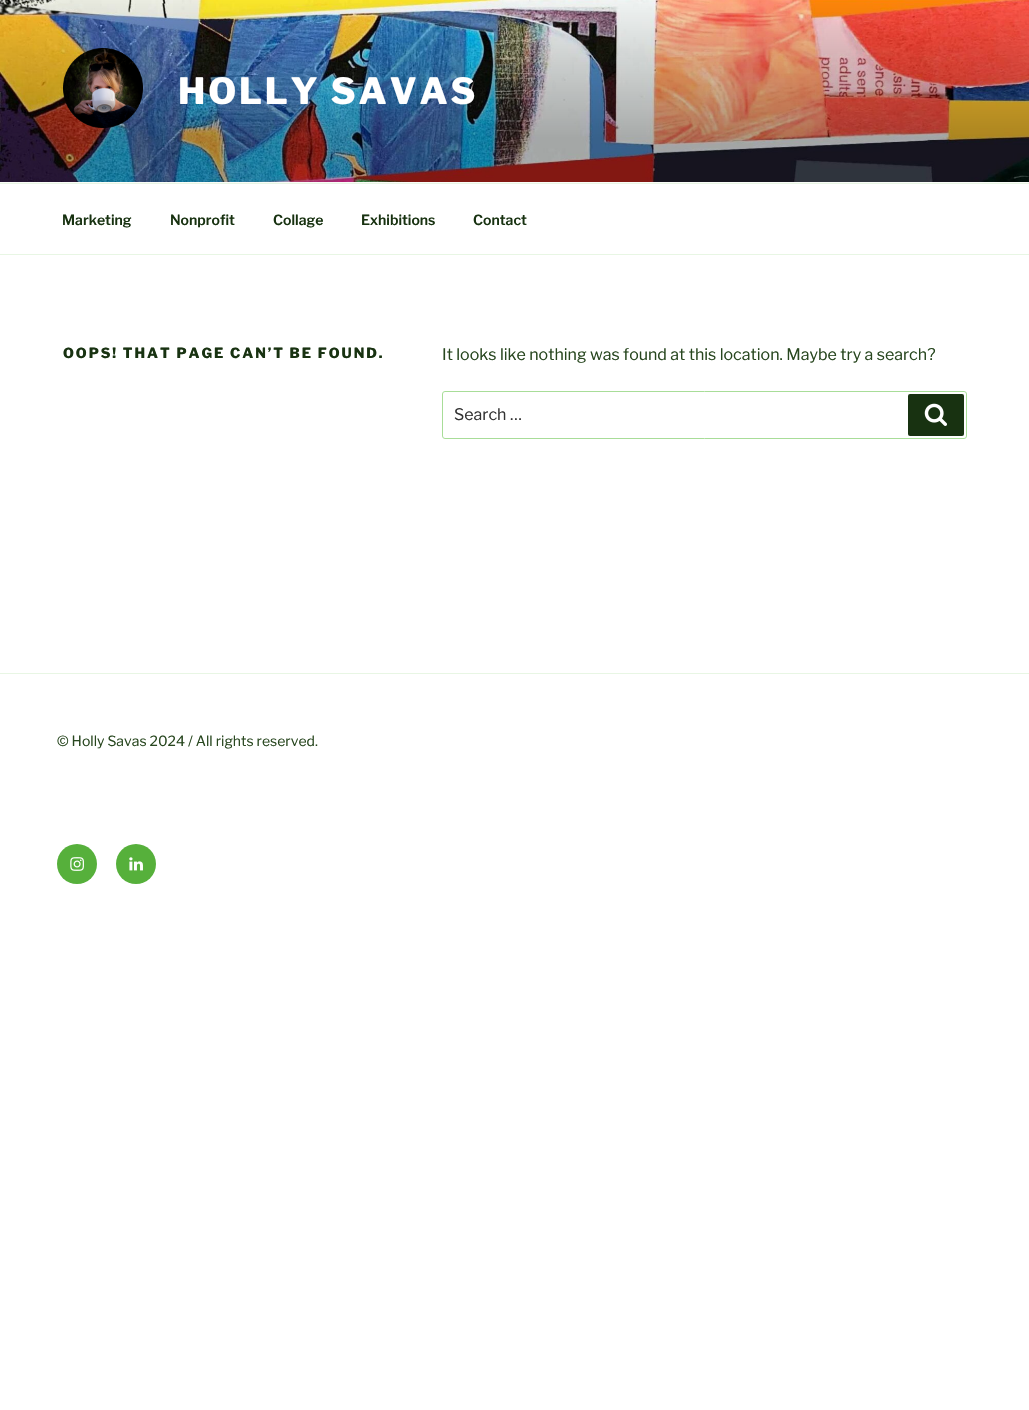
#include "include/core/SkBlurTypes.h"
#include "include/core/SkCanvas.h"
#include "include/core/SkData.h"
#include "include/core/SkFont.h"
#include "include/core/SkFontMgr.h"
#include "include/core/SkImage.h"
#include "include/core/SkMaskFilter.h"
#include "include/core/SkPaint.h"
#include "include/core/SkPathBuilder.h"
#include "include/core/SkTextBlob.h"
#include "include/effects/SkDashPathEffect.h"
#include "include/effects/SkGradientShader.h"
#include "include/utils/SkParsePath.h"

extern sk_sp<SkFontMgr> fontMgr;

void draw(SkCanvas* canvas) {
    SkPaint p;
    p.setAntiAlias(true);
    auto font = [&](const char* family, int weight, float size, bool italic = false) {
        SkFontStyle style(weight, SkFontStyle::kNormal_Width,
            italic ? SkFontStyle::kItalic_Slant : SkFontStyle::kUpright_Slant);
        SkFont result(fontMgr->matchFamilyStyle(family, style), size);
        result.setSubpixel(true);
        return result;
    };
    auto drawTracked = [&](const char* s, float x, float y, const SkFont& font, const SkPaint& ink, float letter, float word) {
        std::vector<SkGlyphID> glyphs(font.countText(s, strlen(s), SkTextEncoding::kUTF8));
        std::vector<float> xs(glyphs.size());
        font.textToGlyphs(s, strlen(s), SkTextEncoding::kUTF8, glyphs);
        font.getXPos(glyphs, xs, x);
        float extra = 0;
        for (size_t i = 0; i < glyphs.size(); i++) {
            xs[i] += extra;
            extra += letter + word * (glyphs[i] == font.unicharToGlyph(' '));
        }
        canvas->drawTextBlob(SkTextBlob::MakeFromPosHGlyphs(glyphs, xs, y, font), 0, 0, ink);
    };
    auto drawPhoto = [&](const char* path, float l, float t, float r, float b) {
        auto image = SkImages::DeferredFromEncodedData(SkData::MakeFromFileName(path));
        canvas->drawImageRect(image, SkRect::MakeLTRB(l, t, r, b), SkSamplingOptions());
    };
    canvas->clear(0xFFFFFFFF);
    p.setColor(0xFFF9FCF7);
    canvas->drawRect(SkRect::MakeLTRB(0, 182, 1029, 183), p);
    drawPhoto("media/1.png", 0, 0, 1029, 182);
    drawPhoto("media/2.png", 63, 48, 143, 128);
    auto font1 = font("Libre Franklin", 100, 36);
    p.setColor(0xFFFFFFFF);
    drawTracked("HOLLY SAVAS", 178, 104, font1, p, 2.9f, 0);
    p.setColor(0xFFE8F6E4);
    canvas->drawRect(SkRect::MakeLTRB(0, 183, 1029, 184), p);
    canvas->drawRect(SkRect::MakeLTRB(0, 254, 1029, 255), p);
    auto font2 = font("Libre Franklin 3", 100, 14);
    p.setColor(0xFF183211);
    {
        const struct { const char* s; float x, y; } items[] = {
            {"Marketing", 62, 225},
            {"Nonprofit", 170, 225},
            {"Collage", 273, 225},
            {"Exhibitions", 361, 225},
            {"Contact", 473, 225},
        };
        for (auto [s, x, y] : items) {
            canvas->drawString(s, x, y, font2, p);
        }
    }
    auto font3 = font("Libre Franklin", 100, 14);
    drawTracked("OOPS! THAT PAGE CAN’T BE FOUND.", 63, 358, font3, p, 1.95f, 0);
    auto font4 = font("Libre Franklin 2", 100, 16);
    p.setColor(0xFF28471F);
    canvas->drawString("It looks like nothing was found at this location. Maybe try a search?", 442, 360, font4, p);
    p.setStyle(SkPaint::kStroke_Style);
    p.setStrokeWidth(1);
    p.setColor(0xFFA8DD98);
    canvas->drawRoundRect(SkRect::MakeLTRB(442.5f, 391.5f, 966.5f, 438.5f), 2.5f, 2.5f, p);
    p.setStyle(SkPaint::kFill_Style);
    p.setColor(0xFF333333);
    canvas->drawString("Search …", 454, 420, font4, p);
    p.setColor(0xFF183211);
    canvas->drawRoundRect(SkRect::MakeLTRB(908, 394, 964, 436), 2, 2, p);
    drawPhoto("media/3.png", 924, 403, 947, 426);
    p.setColor(0xFFE8F6E4);
    canvas->drawRect(SkRect::MakeLTRB(0, 673, 1029, 674), p);
    auto font5 = font("Libre Franklin 2", 100, 14);
    p.setColor(0xFF28471F);
    canvas->drawString("© Holly Savas 2024 / All rights reserved.", 57, 746, font5, p);
    p.setColor(0xFF56B03B);
    canvas->drawCircle(77, 864, 20, p);
    drawPhoto("media/4.png", 70, 857, 84, 871);
    canvas->drawCircle(136, 864, 20, p);
    drawPhoto("media/5.png", 129, 857, 143, 871);
}
